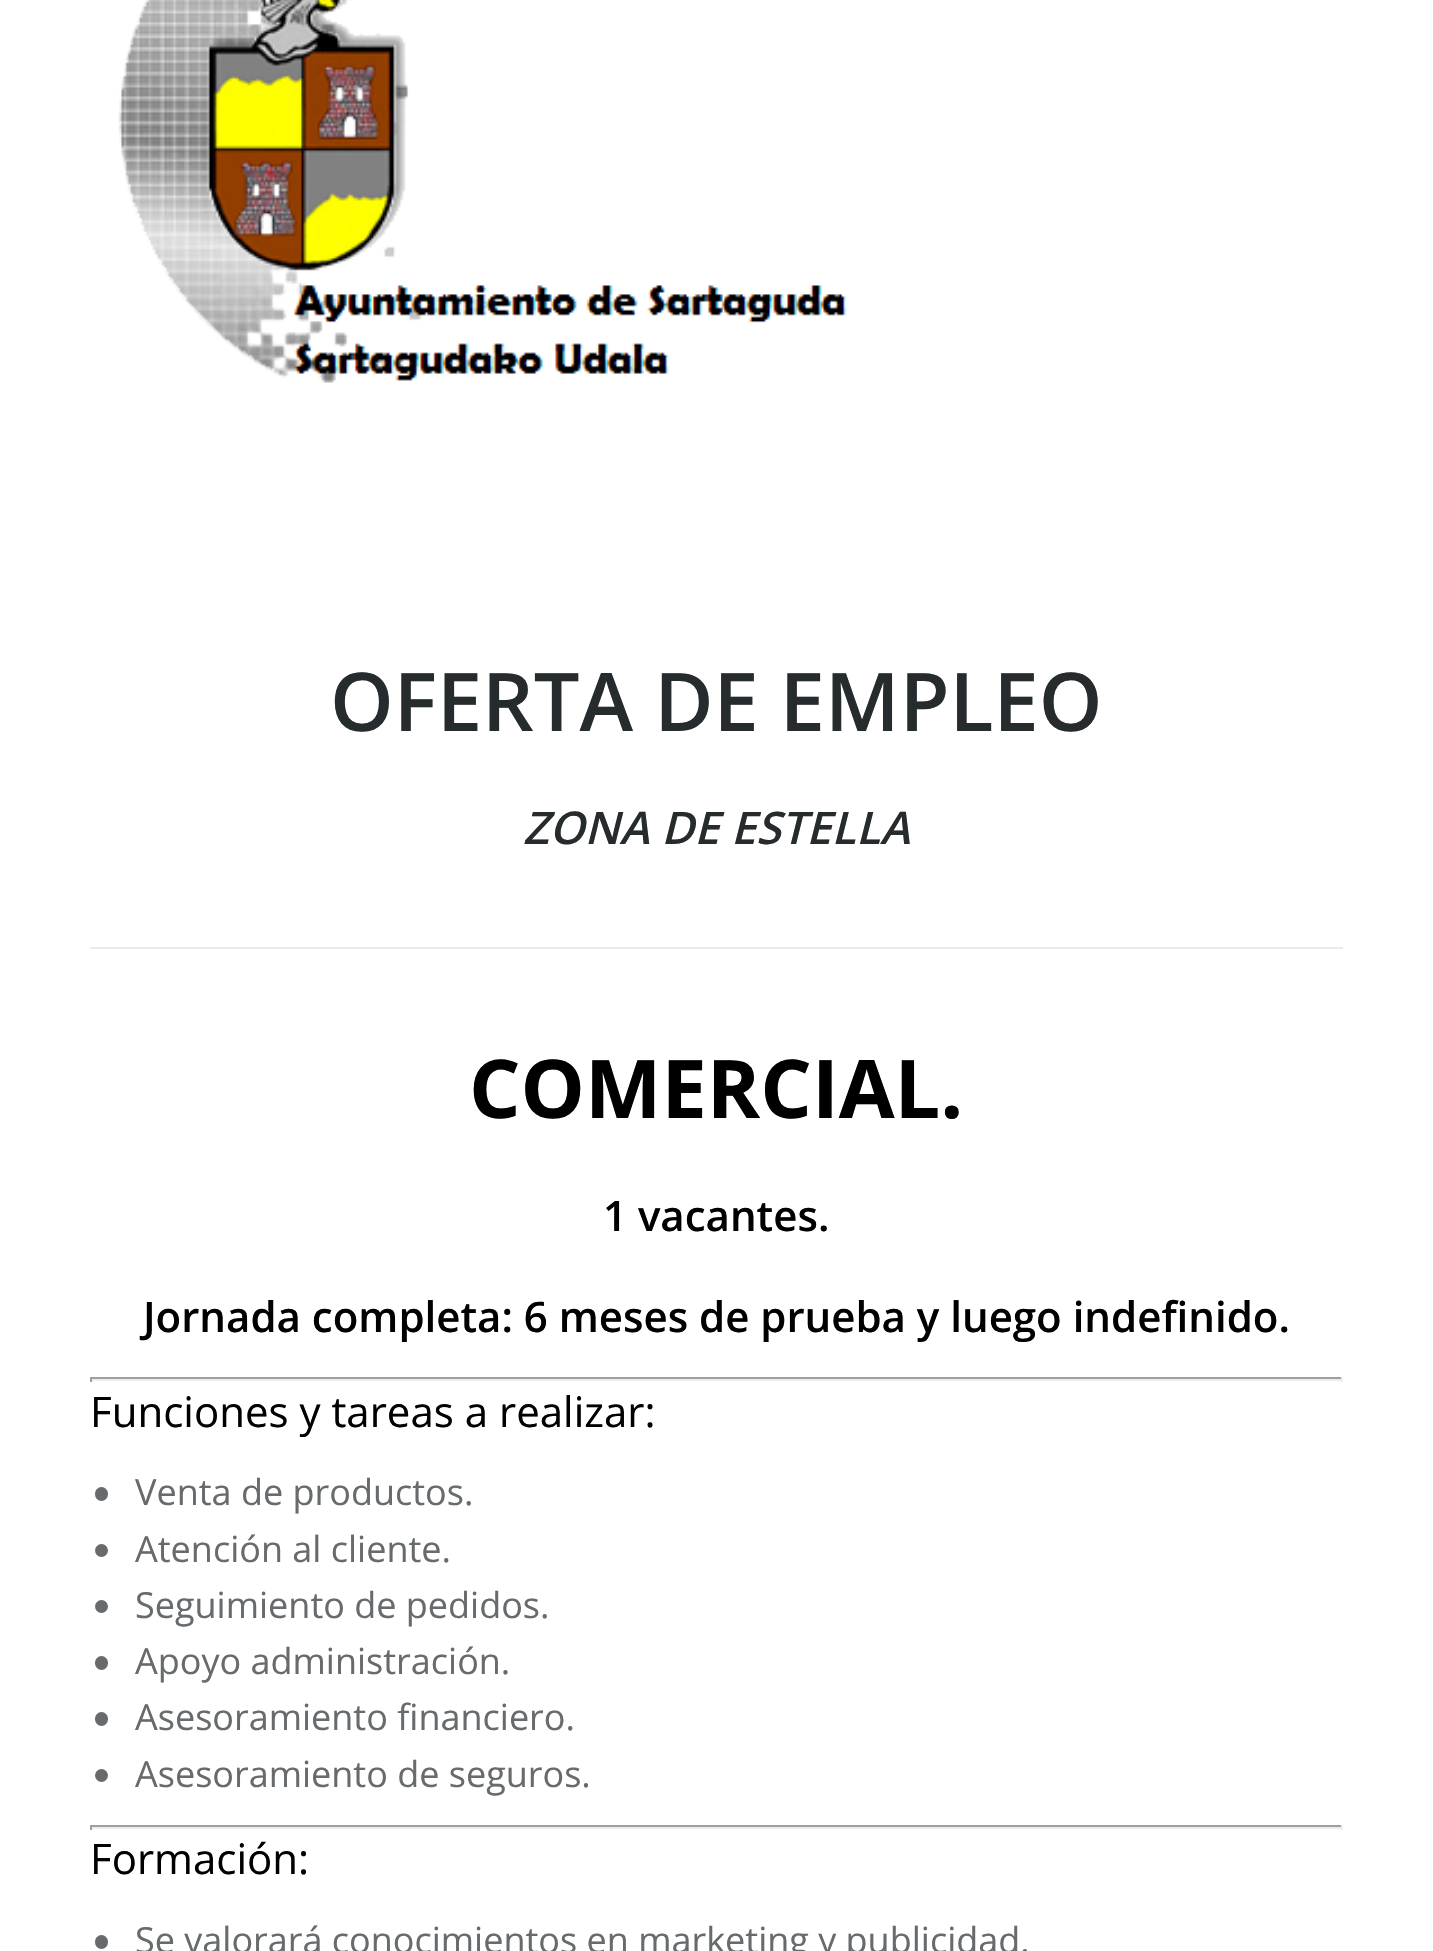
#include "include/core/SkBlurTypes.h"
#include "include/core/SkCanvas.h"
#include "include/core/SkData.h"
#include "include/core/SkFont.h"
#include "include/core/SkFontMgr.h"
#include "include/core/SkImage.h"
#include "include/core/SkMaskFilter.h"
#include "include/core/SkPaint.h"
#include "include/core/SkPathBuilder.h"
#include "include/core/SkTextBlob.h"
#include "include/effects/SkDashPathEffect.h"
#include "include/effects/SkGradientShader.h"
#include "include/utils/SkParsePath.h"

extern sk_sp<SkFontMgr> fontMgr;

void draw(SkCanvas* canvas) {
    SkPaint p;
    p.setAntiAlias(true);
    auto font = [&](const char* family, int weight, float size, bool italic = false) {
        SkFontStyle style(weight, SkFontStyle::kNormal_Width,
            italic ? SkFontStyle::kItalic_Slant : SkFontStyle::kUpright_Slant);
        SkFont result(fontMgr->matchFamilyStyle(family, style), size);
        result.setSubpixel(true);
        return result;
    };
    auto drawPhoto = [&](const char* path, float l, float t, float r, float b) {
        auto image = SkImages::DeferredFromEncodedData(SkData::MakeFromFileName(path));
        canvas->drawImageRect(image, SkRect::MakeLTRB(l, t, r, b), SkSamplingOptions());
    };
    canvas->clear(0xFFFFFFFF);
    drawPhoto("media/1.png", 118, 0, 847, 383);
    auto font1 = font("Open Sans", 600, 81);
    p.setColor(0xFF262B2E);
    canvas->drawString("OFERTA DE EMPLEO", 330, 731, font1, p);
    auto font2 = font("Open Sans", 600, 45, true);
    canvas->drawString("ZONA DE ESTELLA", 523, 844, font2, p);
    p.setColor(0xFFEBEBEB);
    canvas->drawRect(SkRect::MakeLTRB(90, 947, 1343, 949), p);
    auto font3 = font("Open Sans", 700, 81);
    p.setColor(0xFF000000);
    canvas->drawString("COMERCIAL.", 469, 1118, font3, p);
    auto font4 = font("Open Sans", 600, 42);
    canvas->drawString("1 vacantes.", 603, 1231, font4, p);
    canvas->drawString("Jornada completa: 6 meses de prueba y luego indefinido.", 143, 1332, font4, p);
    {
        const struct { float l, t, r, b; SkColor color; } items[] = {
            {90, 1377, 1343, 1379, 0xFF9F9F9F},
            {1341, 1377, 1343, 1382, 0xFFEEEEEE},
            {90, 1379, 1343, 1381, 0xFFEEEEEE},
            {90, 1377, 92, 1382, 0xFF9F9F9F},
        };
        for (auto [l, t, r, b, color] : items) {
            p.setColor(color);
            canvas->drawRect(SkRect::MakeLTRB(l, t, r, b), p);
        }
    }
    auto font5 = font("Open Sans", 400, 42);
    p.setColor(0xFF000000);
    canvas->drawString("Funciones y tareas a realizar:", 90, 1427, font5, p);
    p.setColor(0xFF676B6D);
    canvas->drawRoundRect(SkRect::MakeLTRB(95, 1487, 108, 1501), 6.5f, 6.5f, p);
    auto font6 = font("Open Sans", 400, 36);
    canvas->drawString("Venta de productos.", 135, 1505, font6, p);
    canvas->drawCircle(101.5f, 1550.5f, 6.5f, p);
    canvas->drawString("Atención al cliente.", 135, 1562, font6, p);
    canvas->drawCircle(101.5f, 1606.5f, 6.5f, p);
    canvas->drawString("Seguimiento de pedidos.", 135, 1618, font6, p);
    canvas->drawRoundRect(SkRect::MakeLTRB(95, 1656, 108, 1670), 6.5f, 6.5f, p);
    canvas->drawString("Apoyo administración.", 135, 1674, font6, p);
    canvas->drawRoundRect(SkRect::MakeLTRB(95, 1712, 108, 1726), 6.5f, 6.5f, p);
    canvas->drawString("Asesoramiento financiero.", 135, 1730, font6, p);
    canvas->drawCircle(101.5f, 1775.5f, 6.5f, p);
    canvas->drawString("Asesoramiento de seguros.", 135, 1787, font6, p);
    {
        const struct { float l, t, r, b; SkColor color; } items[] = {
            {90, 1825, 1343, 1827, 0xFF9F9F9F},
            {1341, 1825, 1343, 1830, 0xFFEEEEEE},
            {90, 1827, 1343, 1829, 0xFFEEEEEE},
            {90, 1825, 92, 1830, 0xFF9F9F9F},
        };
        for (auto [l, t, r, b, color] : items) {
            p.setColor(color);
            canvas->drawRect(SkRect::MakeLTRB(l, t, r, b), p);
        }
    }
    p.setColor(0xFF000000);
    canvas->drawString("Formación:", 90, 1874, font5, p);
    p.setColor(0xFF676B6D);
    canvas->drawRoundRect(SkRect::MakeLTRB(95, 1935, 108, 1949), 6.5f, 6.5f, p);
    canvas->drawString("Se valorará conocimientos en marketing y publicidad.", 135, 1953, font6, p);
}
